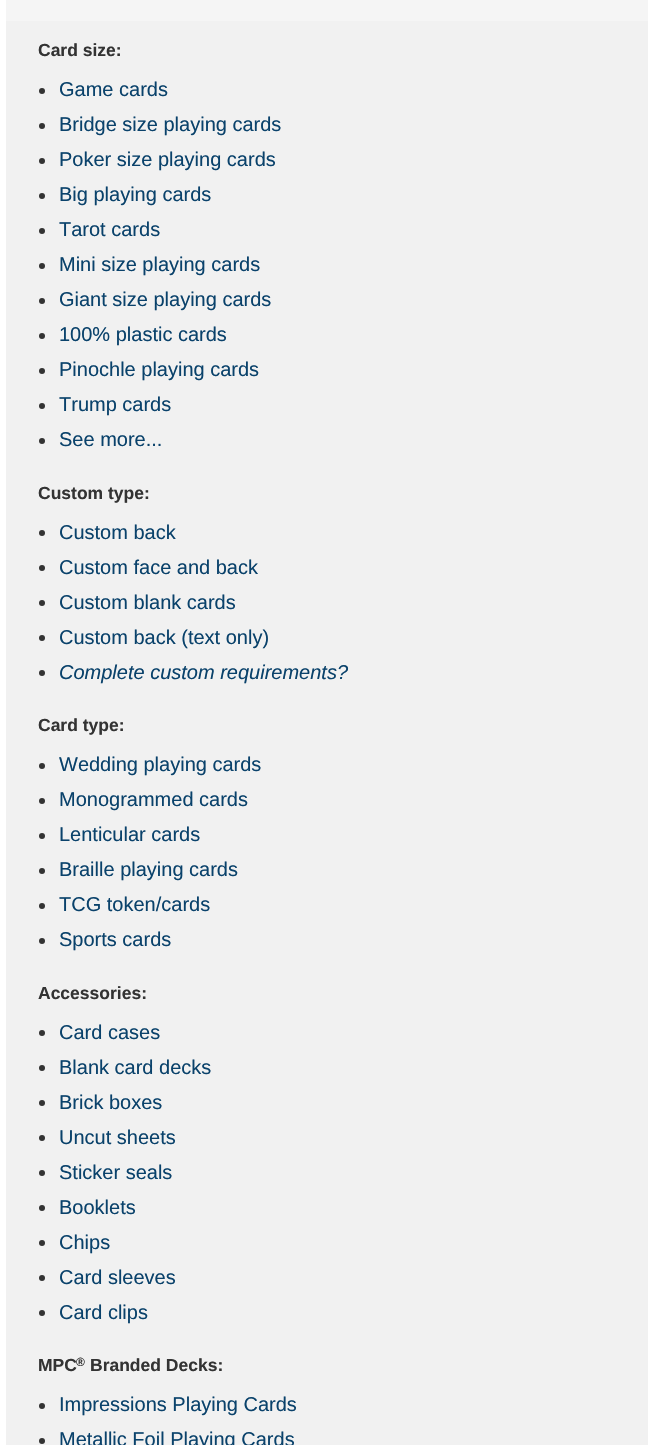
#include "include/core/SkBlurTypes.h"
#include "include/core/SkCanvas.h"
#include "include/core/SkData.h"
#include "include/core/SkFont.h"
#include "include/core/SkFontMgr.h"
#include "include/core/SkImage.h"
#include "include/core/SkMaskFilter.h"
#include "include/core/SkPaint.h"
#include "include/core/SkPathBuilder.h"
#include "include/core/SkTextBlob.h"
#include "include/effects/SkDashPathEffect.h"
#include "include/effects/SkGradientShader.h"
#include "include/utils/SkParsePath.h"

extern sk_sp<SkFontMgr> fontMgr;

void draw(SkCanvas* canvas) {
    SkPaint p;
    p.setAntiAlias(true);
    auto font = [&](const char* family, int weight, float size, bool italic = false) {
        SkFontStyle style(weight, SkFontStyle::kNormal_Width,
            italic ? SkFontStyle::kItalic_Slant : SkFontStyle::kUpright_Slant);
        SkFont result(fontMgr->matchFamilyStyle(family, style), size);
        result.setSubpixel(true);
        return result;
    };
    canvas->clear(0xFFFFFFFF);
    p.setColor(0xFFF5F5F5);
    canvas->drawRect(SkRect::MakeLTRB(6, 0, 648, 21), p);
    p.setColor(0xFFF1F1F1);
    canvas->drawRect(SkRect::MakeLTRB(6, 21, 648, 1445), p);
    auto font1 = font("Liberation Sans", 700, 17.5f);
    p.setColor(0xFF333333);
    canvas->drawString("Card size:", 38, 56, font1, p);
    canvas->drawCircle(42, 91, 3, p);
    auto font2 = font("Liberation Sans", 400, 20);
    p.setColor(0xFF0A426B);
    canvas->drawString("Game cards", 59, 96, font2, p);
    p.setColor(0xFF333333);
    canvas->drawCircle(42, 126, 3, p);
    p.setColor(0xFF0A426B);
    canvas->drawString("Bridge size playing cards", 59, 131, font2, p);
    p.setColor(0xFF333333);
    canvas->drawCircle(42, 161, 3, p);
    p.setColor(0xFF0A426B);
    canvas->drawString("Poker size playing cards", 59, 166, font2, p);
    p.setColor(0xFF333333);
    canvas->drawCircle(42, 196, 3, p);
    p.setColor(0xFF0A426B);
    canvas->drawString("Big playing cards", 59, 201, font2, p);
    p.setColor(0xFF333333);
    canvas->drawCircle(42, 231, 3, p);
    p.setColor(0xFF0A426B);
    canvas->drawString("Tarot cards", 59, 236, font2, p);
    p.setColor(0xFF333333);
    canvas->drawCircle(42, 266, 3, p);
    p.setColor(0xFF0A426B);
    canvas->drawString("Mini size playing cards", 59, 271, font2, p);
    p.setColor(0xFF333333);
    canvas->drawCircle(42, 301, 3, p);
    p.setColor(0xFF0A426B);
    canvas->drawString("Giant size playing cards", 59, 306, font2, p);
    p.setColor(0xFF333333);
    canvas->drawCircle(42, 336, 3, p);
    p.setColor(0xFF0A426B);
    canvas->drawString("100% plastic cards", 59, 341, font2, p);
    p.setColor(0xFF333333);
    canvas->drawCircle(42, 371, 3, p);
    p.setColor(0xFF0A426B);
    canvas->drawString("Pinochle playing cards", 59, 376, font2, p);
    p.setColor(0xFF333333);
    canvas->drawCircle(42, 406, 3, p);
    p.setColor(0xFF0A426B);
    canvas->drawString("Trump cards", 59, 411, font2, p);
    p.setColor(0xFF333333);
    canvas->drawCircle(42, 441, 3, p);
    p.setColor(0xFF0A426B);
    canvas->drawString("See more...", 59, 446, font2, p);
    p.setColor(0xFF333333);
    canvas->drawString("Custom type:", 38, 499, font1, p);
    canvas->drawCircle(42, 533, 3, p);
    p.setColor(0xFF0A426B);
    canvas->drawString("Custom back", 59, 539, font2, p);
    p.setColor(0xFF333333);
    canvas->drawCircle(42, 568, 3, p);
    p.setColor(0xFF0A426B);
    canvas->drawString("Custom face and back", 59, 574, font2, p);
    p.setColor(0xFF333333);
    canvas->drawCircle(42, 603, 3, p);
    p.setColor(0xFF0A426B);
    canvas->drawString("Custom blank cards", 59, 609, font2, p);
    p.setColor(0xFF333333);
    canvas->drawCircle(42, 638, 3, p);
    p.setColor(0xFF0A426B);
    canvas->drawString("Custom back (text only)", 59, 644, font2, p);
    p.setColor(0xFF333333);
    canvas->drawCircle(42, 673, 3, p);
    auto font3 = font("Liberation Sans", 400, 20, true);
    p.setColor(0xFF0A426B);
    canvas->drawString("Complete custom requirements?", 59, 679, font3, p);
    p.setColor(0xFF333333);
    canvas->drawString("Card type:", 38, 731, font1, p);
    canvas->drawCircle(42, 766, 3, p);
    p.setColor(0xFF0A426B);
    canvas->drawString("Wedding playing cards", 59, 771, font2, p);
    p.setColor(0xFF333333);
    canvas->drawCircle(42, 801, 3, p);
    p.setColor(0xFF0A426B);
    canvas->drawString("Monogrammed cards", 59, 806, font2, p);
    p.setColor(0xFF333333);
    canvas->drawCircle(42, 836, 3, p);
    p.setColor(0xFF0A426B);
    canvas->drawString("Lenticular cards", 59, 841, font2, p);
    p.setColor(0xFF333333);
    canvas->drawCircle(42, 871, 3, p);
    p.setColor(0xFF0A426B);
    canvas->drawString("Braille playing cards", 59, 876, font2, p);
    p.setColor(0xFF333333);
    canvas->drawCircle(42, 906, 3, p);
    p.setColor(0xFF0A426B);
    canvas->drawString("TCG token/cards", 59, 911, font2, p);
    p.setColor(0xFF333333);
    canvas->drawCircle(42, 941, 3, p);
    p.setColor(0xFF0A426B);
    canvas->drawString("Sports cards", 59, 946, font2, p);
    p.setColor(0xFF333333);
    canvas->drawString("Accessories:", 38, 999, font1, p);
    canvas->drawCircle(42, 1033, 3, p);
    p.setColor(0xFF0A426B);
    canvas->drawString("Card cases", 59, 1039, font2, p);
    p.setColor(0xFF333333);
    canvas->drawCircle(42, 1068, 3, p);
    p.setColor(0xFF0A426B);
    canvas->drawString("Blank card decks", 59, 1074, font2, p);
    p.setColor(0xFF333333);
    canvas->drawCircle(42, 1103, 3, p);
    p.setColor(0xFF0A426B);
    canvas->drawString("Brick boxes", 59, 1109, font2, p);
    p.setColor(0xFF333333);
    canvas->drawCircle(42, 1138, 3, p);
    p.setColor(0xFF0A426B);
    canvas->drawString("Uncut sheets", 59, 1144, font2, p);
    p.setColor(0xFF333333);
    canvas->drawCircle(42, 1173, 3, p);
    p.setColor(0xFF0A426B);
    canvas->drawString("Sticker seals", 59, 1179, font2, p);
    p.setColor(0xFF333333);
    canvas->drawCircle(42, 1208, 3, p);
    p.setColor(0xFF0A426B);
    canvas->drawString("Booklets", 59, 1214, font2, p);
    p.setColor(0xFF333333);
    canvas->drawCircle(42, 1243, 3, p);
    p.setColor(0xFF0A426B);
    canvas->drawString("Chips", 59, 1249, font2, p);
    p.setColor(0xFF333333);
    canvas->drawCircle(42, 1278, 3, p);
    p.setColor(0xFF0A426B);
    canvas->drawString("Card sleeves", 59, 1284, font2, p);
    p.setColor(0xFF333333);
    canvas->drawCircle(42, 1313, 3, p);
    p.setColor(0xFF0A426B);
    canvas->drawString("Card clips", 59, 1319, font2, p);
    p.setColor(0xFF333333);
    canvas->drawString("MPC", 38, 1371, font1, p);
    auto font4 = font("Liberation Sans", 700, 12);
    canvas->drawString("®", 76, 1366, font4, p);
    canvas->drawString("Branded Decks:", 90, 1371, font1, p);
    canvas->drawCircle(42, 1406, 3, p);
    p.setColor(0xFF0A426B);
    canvas->drawString("Impressions Playing Cards", 59, 1411, font2, p);
    p.setColor(0xFF333333);
    canvas->drawCircle(42, 1441, 3, p);
    p.setColor(0xFF0A426B);
    canvas->drawString("Metallic Foil Playing Cards", 59, 1446, font2, p);
}
